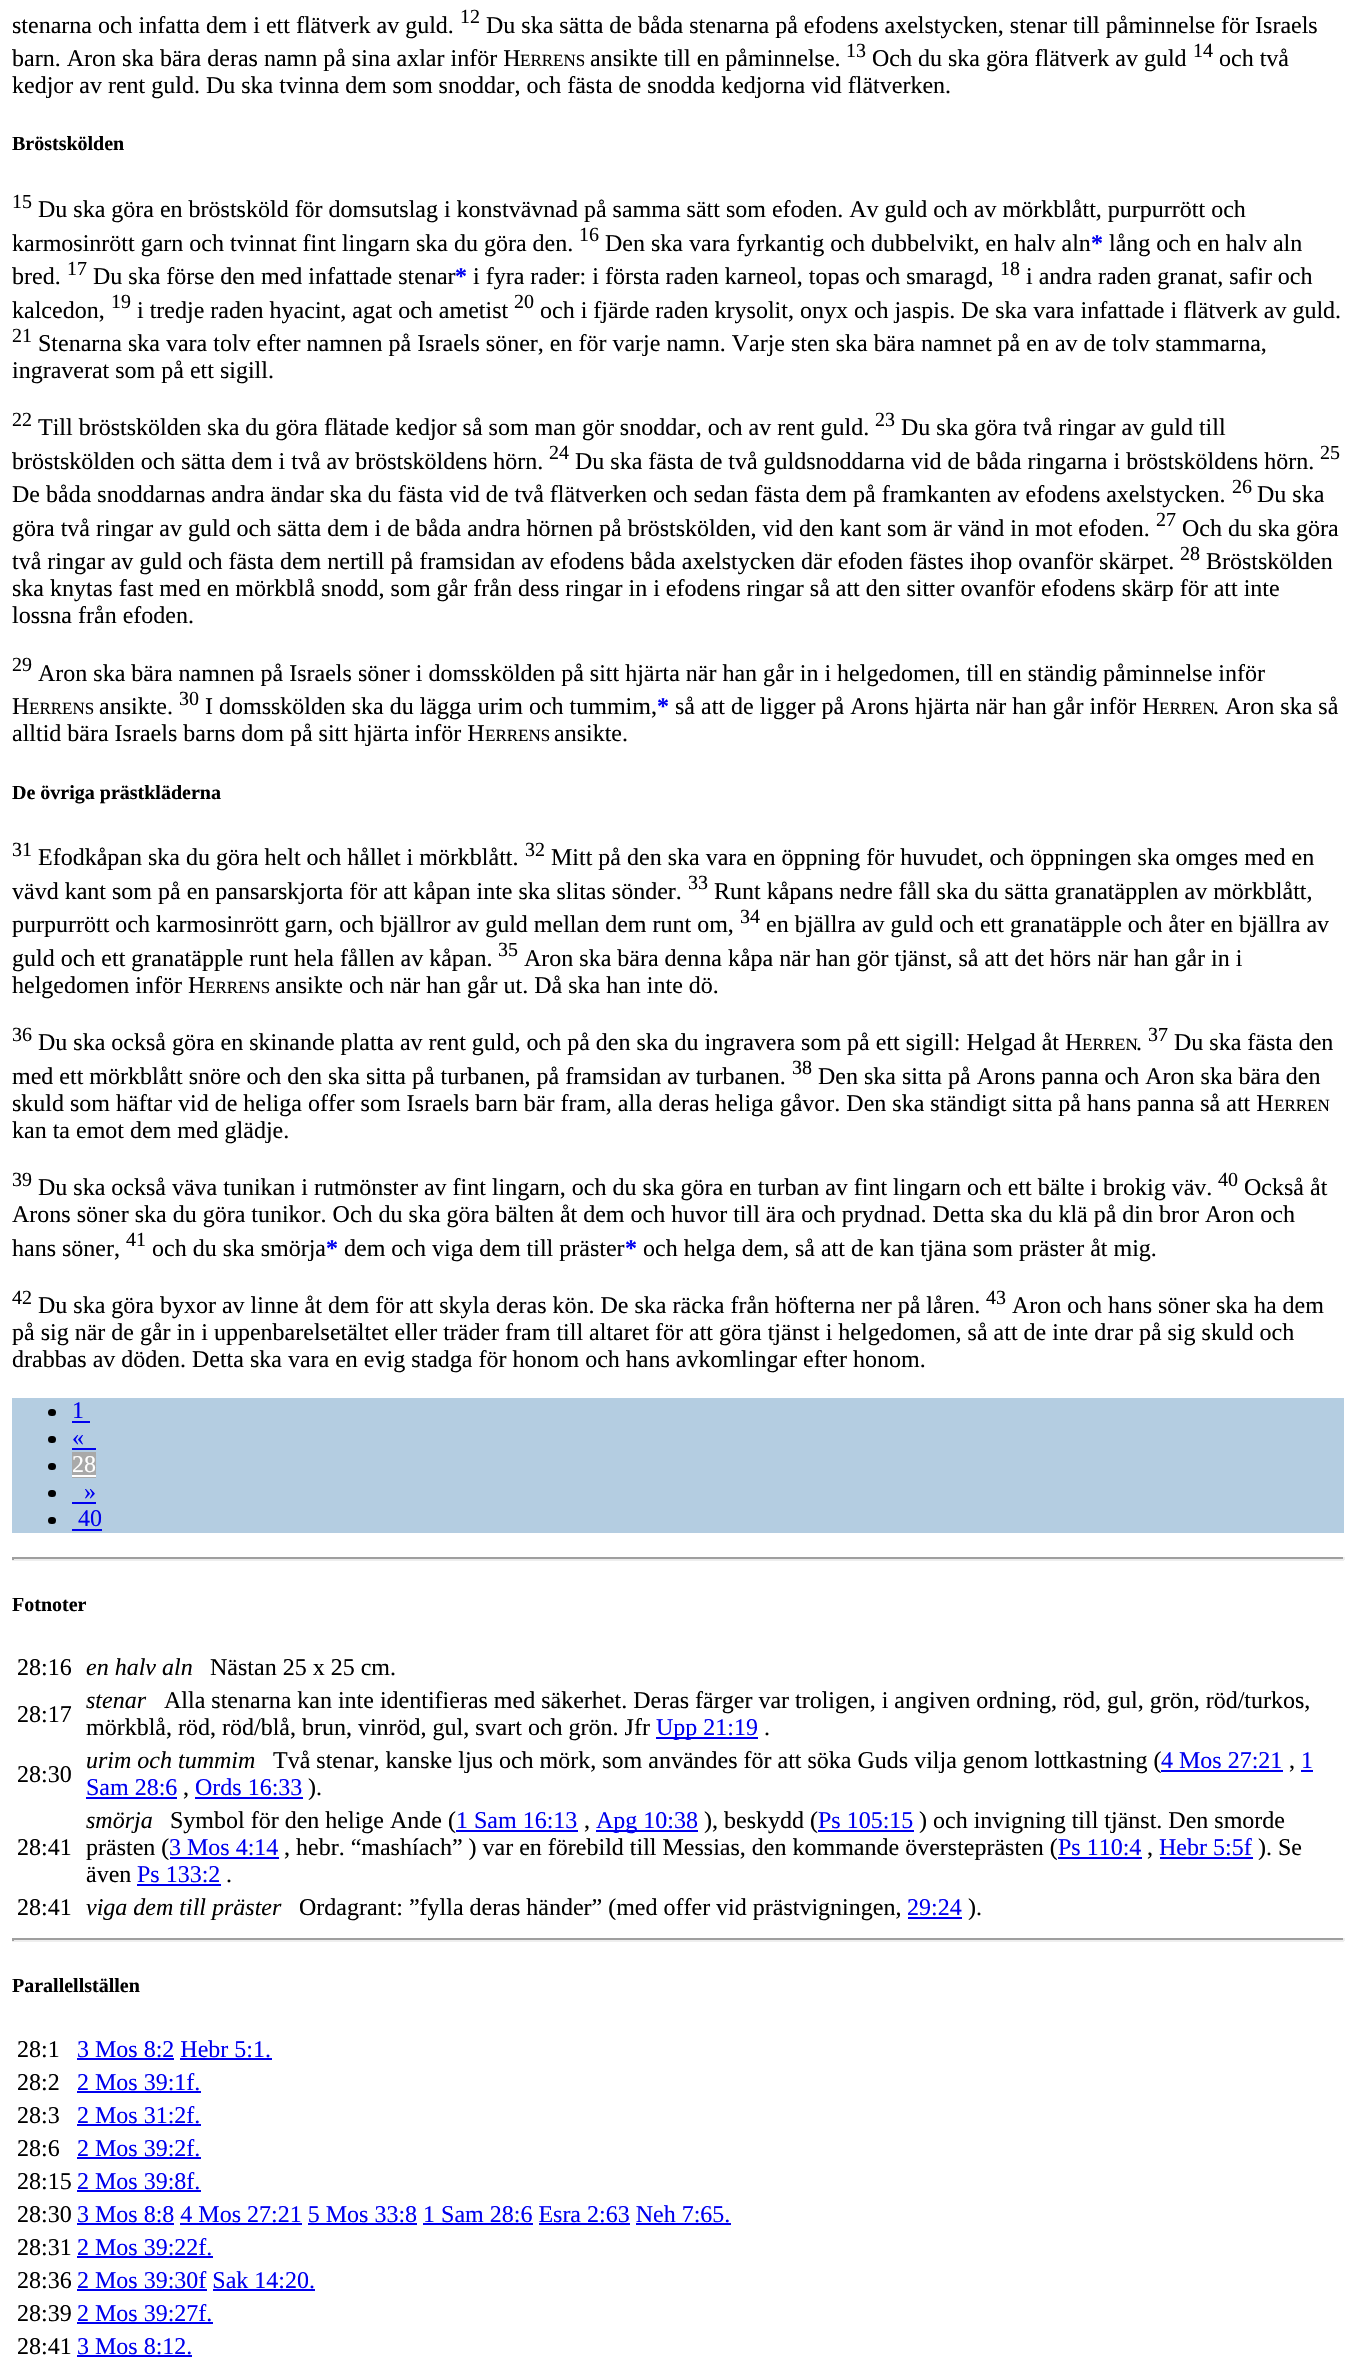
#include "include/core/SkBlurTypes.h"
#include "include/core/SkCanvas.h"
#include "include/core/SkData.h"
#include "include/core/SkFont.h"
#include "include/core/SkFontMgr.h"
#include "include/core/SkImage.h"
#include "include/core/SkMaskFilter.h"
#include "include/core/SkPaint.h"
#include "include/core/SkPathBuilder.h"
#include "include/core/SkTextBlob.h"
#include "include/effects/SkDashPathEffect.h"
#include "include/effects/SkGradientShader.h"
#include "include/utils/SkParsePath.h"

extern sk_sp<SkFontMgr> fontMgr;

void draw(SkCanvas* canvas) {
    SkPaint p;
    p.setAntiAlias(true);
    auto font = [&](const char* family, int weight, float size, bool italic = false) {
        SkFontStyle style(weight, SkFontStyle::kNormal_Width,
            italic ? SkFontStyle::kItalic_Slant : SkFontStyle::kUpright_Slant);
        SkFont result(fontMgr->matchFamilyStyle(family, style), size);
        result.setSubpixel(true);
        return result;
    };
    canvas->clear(0xFFFFFFFF);
    auto font1 = font("Liberation Serif", 400, 24);
    p.setColor(0xFF000000);
    canvas->drawString("stenarna och infatta dem i ett flätverk av guld.", 12, 33, font1, p);
    auto font2 = font("Liberation Serif", 400, 20);
    canvas->drawString("12", 460, 23, font2, p);
    canvas->drawString("Du ska sätta de båda stenarna på efodens axelstycken, stenar till påminnelse för Israels", 486, 33, font1, p);
    canvas->drawString("barn. Aron ska bära deras namn på sina axlar inför H", 12, 66, font1, p);
    auto font3 = font("Liberation Serif", 400, 17);
    canvas->drawString("ERRENS", 520, 66, font3, p);
    canvas->drawString("ansikte till en påminnelse.", 590, 66, font1, p);
    canvas->drawString("13", 846, 57, font2, p);
    canvas->drawString("Och du ska göra flätverk av guld", 872, 66, font1, p);
    canvas->drawString("14", 1193, 57, font2, p);
    canvas->drawString("och två", 1219, 66, font1, p);
    canvas->drawString("kedjor av rent guld. Du ska tvinna dem som snoddar, och fästa de snodda kedjorna vid flätverken.", 12, 93, font1, p);
    auto font4 = font("Liberation Serif", 700, 20);
    canvas->drawString("Bröstskölden", 12, 150, font4, p);
    canvas->drawString("15", 12, 208, font2, p);
    canvas->drawString("Du ska göra en bröstsköld för domsutslag i konstvävnad på samma sätt som efoden. Av guld och av mörkblått, purpurrött och", 38, 217, font1, p);
    canvas->drawString("karmosinrött garn och tvinnat fint lingarn ska du göra den.", 12, 251, font1, p);
    canvas->drawString("16", 579, 241, font2, p);
    canvas->drawString("Den ska vara fyrkantig och dubbelvikt, en halv aln", 605, 251, font1, p);
    auto font5 = font("Liberation Serif", 700, 24);
    p.setColor(0xFF0000EE);
    canvas->drawString("*", 1091, 251, font5, p);
    p.setColor(0xFF000000);
    canvas->drawString("lång och en halv aln", 1109, 251, font1, p);
    canvas->drawString("bred.", 12, 284, font1, p);
    canvas->drawString("17", 67, 275, font2, p);
    canvas->drawString("Du ska förse den med infattade stenar", 93, 284, font1, p);
    p.setColor(0xFF0000EE);
    canvas->drawString("*", 455, 284, font5, p);
    p.setColor(0xFF000000);
    canvas->drawString("i fyra rader: i första raden karneol, topas och smaragd,", 473, 284, font1, p);
    canvas->drawString("18", 1000, 275, font2, p);
    canvas->drawString("i andra raden granat, safir och", 1026, 284, font1, p);
    canvas->drawString("kalcedon,", 12, 318, font1, p);
    canvas->drawString("19", 111, 308, font2, p);
    canvas->drawString("i tredje raden hyacint, agat och ametist", 137, 318, font1, p);
    canvas->drawString("20", 514, 308, font2, p);
    canvas->drawString("och i fjärde raden krysolit, onyx och jaspis. De ska vara infattade i flätverk av guld.", 540, 318, font1, p);
    canvas->drawString("21", 12, 342, font2, p);
    canvas->drawString("Stenarna ska vara tolv efter namnen på Israels söner, en för varje namn. Varje sten ska bära namnet på en av de tolv stammarna,", 38, 351, font1, p);
    canvas->drawString("ingraverat som på ett sigill.", 12, 378, font1, p);
    canvas->drawString("22", 12, 426, font2, p);
    canvas->drawString("Till bröstskölden ska du göra flätade kedjor så som man gör snoddar, och av rent guld.", 38, 435, font1, p);
    canvas->drawString("23", 875, 426, font2, p);
    canvas->drawString("Du ska göra två ringar av guld till", 901, 435, font1, p);
    canvas->drawString("bröstskölden och sätta dem i två av bröstsköldens hörn.", 12, 469, font1, p);
    canvas->drawString("24", 549, 459, font2, p);
    canvas->drawString("Du ska fästa de två guldsnoddarna vid de båda ringarna i bröstsköldens hörn.", 575, 469, font1, p);
    canvas->drawString("25", 1320, 459, font2, p);
    canvas->drawString("De båda snoddarnas andra ändar ska du fästa vid de två flätverken och sedan fästa dem på framkanten av efodens axelstycken.", 12, 502, font1, p);
    canvas->drawString("26", 1232, 493, font2, p);
    canvas->drawString("Du ska", 1257, 502, font1, p);
    canvas->drawString("göra två ringar av guld och sätta dem i de båda andra hörnen på bröstskölden, vid den kant som är vänd in mot efoden.", 12, 536, font1, p);
    canvas->drawString("27", 1156, 526, font2, p);
    canvas->drawString("Och du ska göra", 1182, 536, font1, p);
    canvas->drawString("två ringar av guld och fästa dem nertill på framsidan av efodens båda axelstycken där efoden fästes ihop ovanför skärpet.", 12, 569, font1, p);
    canvas->drawString("28", 1180, 560, font2, p);
    {
        const struct { const char* s; float x, y; } items[] = {
            {"Bröstskölden", 1206, 569},
            {"ska knytas fast med en mörkblå snodd, som går från dess ringar in i efodens ringar så att den sitter ovanför efodens skärp för att inte", 12, 596},
            {"lossna från efoden.", 12, 623},
        };
        for (auto [s, x, y] : items) {
            canvas->drawString(s, x, y, font1, p);
        }
    }
    canvas->drawString("29", 12, 671, font2, p);
    canvas->drawString("Aron ska bära namnen på Israels söner i domsskölden på sitt hjärta när han går in i helgedomen, till en ständig påminnelse inför", 38, 681, font1, p);
    canvas->drawString("H", 12, 714, font1, p);
    canvas->drawString("ERRENS", 29, 714, font3, p);
    canvas->drawString("ansikte.", 99, 714, font1, p);
    canvas->drawString("30", 179, 705, font2, p);
    canvas->drawString("I domsskölden ska du lägga urim och tummim,", 205, 714, font1, p);
    p.setColor(0xFF0000EE);
    canvas->drawString("*", 657, 714, font5, p);
    p.setColor(0xFF000000);
    canvas->drawString("så att de ligger på Arons hjärta när han går inför H", 675, 714, font1, p);
    canvas->drawString("ERREN", 1159, 714, font3, p);
    canvas->drawString(". Aron ska så", 1213, 714, font1, p);
    canvas->drawString("alltid bära Israels barns dom på sitt hjärta inför H", 12, 741, font1, p);
    canvas->drawString("ERRENS", 485, 741, font3, p);
    canvas->drawString("ansikte.", 554, 741, font1, p);
    canvas->drawString("De övriga prästkläderna", 12, 799, font4, p);
    canvas->drawString("31", 12, 856, font2, p);
    canvas->drawString("Efodkåpan ska du göra helt och hållet i mörkblått.", 38, 865, font1, p);
    canvas->drawString("32", 525, 856, font2, p);
    canvas->drawString("Mitt på den ska vara en öppning för huvudet, och öppningen ska omges med en", 551, 865, font1, p);
    canvas->drawString("vävd kant som på en pansarskjorta för att kåpan inte ska slitas sönder.", 12, 899, font1, p);
    canvas->drawString("33", 688, 889, font2, p);
    canvas->drawString("Runt kåpans nedre fåll ska du sätta granatäpplen av mörkblått,", 714, 899, font1, p);
    canvas->drawString("purpurrött och karmosinrött garn, och bjällror av guld mellan dem runt om,", 12, 932, font1, p);
    canvas->drawString("34", 740, 923, font2, p);
    canvas->drawString("en bjällra av guld och ett granatäpple och åter en bjällra av", 766, 932, font1, p);
    canvas->drawString("guld och ett granatäpple runt hela fållen av kåpan.", 12, 966, font1, p);
    canvas->drawString("35", 498, 956, font2, p);
    canvas->drawString("Aron ska bära denna kåpa när han gör tjänst, så att det hörs när han går in i", 524, 966, font1, p);
    canvas->drawString("helgedomen inför H", 12, 993, font1, p);
    canvas->drawString("ERRENS", 205, 993, font3, p);
    canvas->drawString("ansikte och när han går ut. Då ska han inte dö.", 275, 993, font1, p);
    canvas->drawString("36", 12, 1041, font2, p);
    canvas->drawString("Du ska också göra en skinande platta av rent guld, och på den ska du ingravera som på ett sigill: Helgad åt H", 38, 1050, font1, p);
    canvas->drawString("ERREN", 1082, 1050, font3, p);
    canvas->drawString(".", 1136, 1050, font1, p);
    canvas->drawString("37", 1148, 1041, font2, p);
    canvas->drawString("Du ska fästa den", 1174, 1050, font1, p);
    canvas->drawString("med ett mörkblått snöre och den ska sitta på turbanen, på framsidan av turbanen.", 12, 1084, font1, p);
    canvas->drawString("38", 792, 1074, font2, p);
    canvas->drawString("Den ska sitta på Arons panna och Aron ska bära den", 818, 1084, font1, p);
    canvas->drawString("skuld som häftar vid de heliga offer som Israels barn bär fram, alla deras heliga gåvor. Den ska ständigt sitta på hans panna så att H", 12, 1111, font1, p);
    canvas->drawString("ERREN", 1274, 1111, font3, p);
    canvas->drawString("kan ta emot dem med glädje.", 12, 1138, font1, p);
    canvas->drawString("39", 12, 1186, font2, p);
    canvas->drawString("Du ska också väva tunikan i rutmönster av fint lingarn, och du ska göra en turban av fint lingarn och ett bälte i brokig väv.", 38, 1195, font1, p);
    canvas->drawString("40", 1218, 1186, font2, p);
    {
        const struct { const char* s; float x, y; } items[] = {
            {"Också åt", 1244, 1195},
            {"Arons söner ska du göra tunikor. Och du ska göra bälten åt dem och huvor till ära och prydnad. Detta ska du klä på din bror Aron och", 12, 1222},
            {"hans söner,", 12, 1256},
        };
        for (auto [s, x, y] : items) {
            canvas->drawString(s, x, y, font1, p);
        }
    }
    canvas->drawString("41", 126, 1246, font2, p);
    canvas->drawString("och du ska smörja", 152, 1256, font1, p);
    p.setColor(0xFF0000EE);
    canvas->drawString("*", 326, 1256, font5, p);
    p.setColor(0xFF000000);
    canvas->drawString("dem och viga dem till präster", 344, 1256, font1, p);
    p.setColor(0xFF0000EE);
    canvas->drawString("*", 625, 1256, font5, p);
    p.setColor(0xFF000000);
    canvas->drawString("och helga dem, så att de kan tjäna som präster åt mig.", 643, 1256, font1, p);
    canvas->drawString("42", 12, 1304, font2, p);
    canvas->drawString("Du ska göra byxor av linne åt dem för att skyla deras kön. De ska räcka från höfterna ner på låren.", 38, 1313, font1, p);
    canvas->drawString("43", 986, 1304, font2, p);
    {
        const struct { const char* s; float x, y; } items[] = {
            {"Aron och hans söner ska ha dem", 1012, 1313},
            {"på sig när de går in i uppenbarelsetältet eller träder fram till altaret för att göra tjänst i helgedomen, så att de inte drar på sig skuld och", 12, 1340},
            {"drabbas av döden. Detta ska vara en evig stadga för honom och hans avkomlingar efter honom.", 12, 1367},
        };
        for (auto [s, x, y] : items) {
            canvas->drawString(s, x, y, font1, p);
        }
    }
    p.setColor(0xFFB4CDE1);
    canvas->drawRect(SkRect::MakeLTRB(12, 1398, 1344, 1533), p);
    p.setColor(0xFF000000);
    canvas->drawRoundRect(SkRect::MakeLTRB(48, 1409, 56, 1416), 3.5f, 3.5f, p);
    p.setColor(0xFF0000EE);
    canvas->drawString("1", 72, 1418, font1, p);
    canvas->drawRect(SkRect::MakeLTRB(72, 1421, 90, 1423), p);
    p.setColor(0xFF000000);
    canvas->drawRoundRect(SkRect::MakeLTRB(48, 1436, 56, 1443), 3.5f, 3.5f, p);
    p.setColor(0xFF0000EE);
    canvas->drawString("«", 72, 1445, font1, p);
    canvas->drawRect(SkRect::MakeLTRB(72, 1448, 96, 1450), p);
    p.setColor(0xFF000000);
    canvas->drawRoundRect(SkRect::MakeLTRB(48, 1463, 56, 1470), 3.5f, 3.5f, p);
    p.setColor(0xFFA9A9A9);
    canvas->drawRect(SkRect::MakeLTRB(72, 1452, 96, 1478), p);
    p.setColor(0xFFFFFFFF);
    canvas->drawString("28", 72, 1472, font1, p);
    canvas->drawRect(SkRect::MakeLTRB(72, 1475, 96, 1477), p);
    p.setColor(0xFF000000);
    canvas->drawRoundRect(SkRect::MakeLTRB(48, 1490, 56, 1497), 3.5f, 3.5f, p);
    p.setColor(0xFF0000EE);
    canvas->drawString("»", 84, 1499, font1, p);
    canvas->drawRect(SkRect::MakeLTRB(72, 1502, 96, 1504), p);
    p.setColor(0xFF000000);
    canvas->drawRoundRect(SkRect::MakeLTRB(48, 1517, 56, 1524), 3.5f, 3.5f, p);
    p.setColor(0xFF0000EE);
    canvas->drawString("40", 78, 1526, font1, p);
    {
        const struct { float l, t, r, b; SkColor color; } items[] = {
            {72, 1529, 102, 1531, 0xFF0000EE},
            {12, 1557, 1344, 1559, 0xFF9F9F9F},
            {1343, 1557, 1345, 1560, 0xFFEEEEEE},
            {12, 1559, 1344, 1561, 0xFFEEEEEE},
            {12, 1557, 14, 1560, 0xFF9F9F9F},
        };
        for (auto [l, t, r, b, color] : items) {
            p.setColor(color);
            canvas->drawRect(SkRect::MakeLTRB(l, t, r, b), p);
        }
    }
    p.setColor(0xFF000000);
    canvas->drawString("Fotnoter", 12, 1611, font4, p);
    canvas->drawString("28:16", 17, 1675, font1, p);
    auto font6 = font("Liberation Serif", 400, 24, true);
    canvas->drawString("en halv aln", 86, 1675, font6, p);
    canvas->drawString("Nästan 25 x 25 cm.", 210, 1675, font1, p);
    canvas->drawString("28:17", 17, 1722, font1, p);
    canvas->drawString("stenar", 86, 1708, font6, p);
    canvas->drawString("Alla stenarna kan inte identifieras med säkerhet. Deras färger var troligen, i angiven ordning, röd, gul, grön, röd/turkos,", 164, 1708, font1, p);
    canvas->drawString("mörkblå, röd, röd/blå, brun, vinröd, gul, svart och grön. Jfr", 86, 1735, font1, p);
    p.setColor(0xFF0000EE);
    canvas->drawRect(SkRect::MakeLTRB(656, 1737, 758, 1739), p);
    canvas->drawString("Upp 21:19", 656, 1735, font1, p);
    p.setColor(0xFF000000);
    canvas->drawString(".", 764, 1735, font1, p);
    canvas->drawString("28:30", 17, 1782, font1, p);
    canvas->drawString("urim och tummim", 86, 1768, font6, p);
    canvas->drawString("Två stenar, kanske ljus och mörk, som användes för att söka Guds vilja genom lottkastning (", 273, 1768, font1, p);
    p.setColor(0xFF0000EE);
    canvas->drawString("4 Mos 27:21", 1161, 1768, font1, p);
    canvas->drawRect(SkRect::MakeLTRB(1161, 1770, 1283, 1772), p);
    p.setColor(0xFF000000);
    canvas->drawString(",", 1289, 1768, font1, p);
    p.setColor(0xFF0000EE);
    canvas->drawString("1", 1301, 1768, font1, p);
    canvas->drawRect(SkRect::MakeLTRB(1301, 1770, 1313, 1772), p);
    canvas->drawString("Sam 28:6", 86, 1795, font1, p);
    canvas->drawRect(SkRect::MakeLTRB(86, 1797, 177, 1799), p);
    p.setColor(0xFF000000);
    canvas->drawString(",", 183, 1795, font1, p);
    p.setColor(0xFF0000EE);
    canvas->drawString("Ords 16:33", 195, 1795, font1, p);
    canvas->drawRect(SkRect::MakeLTRB(195, 1797, 303, 1799), p);
    p.setColor(0xFF000000);
    canvas->drawString(").", 308, 1795, font1, p);
    canvas->drawString("28:41", 17, 1855, font1, p);
    canvas->drawString("smörja", 86, 1828, font6, p);
    canvas->drawString("Symbol för den helige Ande (", 170, 1828, font1, p);
    p.setColor(0xFF0000EE);
    canvas->drawString("1 Sam 16:13", 456, 1828, font1, p);
    canvas->drawRect(SkRect::MakeLTRB(456, 1830, 578, 1832), p);
    p.setColor(0xFF000000);
    canvas->drawString(",", 584, 1828, font1, p);
    p.setColor(0xFF0000EE);
    canvas->drawRect(SkRect::MakeLTRB(596, 1830, 698, 1832), p);
    canvas->drawString("Apg 10:38", 596, 1828, font1, p);
    p.setColor(0xFF000000);
    canvas->drawString("), beskydd (", 704, 1828, font1, p);
    p.setColor(0xFF0000EE);
    canvas->drawString("Ps 105:15", 818, 1828, font1, p);
    canvas->drawRect(SkRect::MakeLTRB(818, 1830, 914, 1832), p);
    p.setColor(0xFF000000);
    canvas->drawString(") och invigning till tjänst. Den smorde", 919, 1828, font1, p);
    canvas->drawString("prästen (", 86, 1855, font1, p);
    p.setColor(0xFF0000EE);
    canvas->drawString("3 Mos 4:14", 169, 1855, font1, p);
    canvas->drawRect(SkRect::MakeLTRB(170, 1857, 279, 1859), p);
    p.setColor(0xFF000000);
    canvas->drawString(", hebr. “mashíach” ) var en förebild till Messias, den kommande översteprästen (", 284, 1855, font1, p);
    p.setColor(0xFF0000EE);
    canvas->drawString("Ps 110:4", 1058, 1855, font1, p);
    canvas->drawRect(SkRect::MakeLTRB(1058, 1857, 1142, 1859), p);
    p.setColor(0xFF000000);
    canvas->drawString(",", 1147, 1855, font1, p);
    p.setColor(0xFF0000EE);
    canvas->drawString("Hebr 5:5f", 1159, 1855, font1, p);
    canvas->drawRect(SkRect::MakeLTRB(1160, 1857, 1253, 1859), p);
    p.setColor(0xFF000000);
    canvas->drawString("). Se", 1258, 1855, font1, p);
    canvas->drawString("även", 86, 1882, font1, p);
    p.setColor(0xFF0000EE);
    canvas->drawString("Ps 133:2", 137, 1882, font1, p);
    canvas->drawRect(SkRect::MakeLTRB(137, 1884, 221, 1886), p);
    p.setColor(0xFF000000);
    canvas->drawString(".", 226, 1882, font1, p);
    canvas->drawString("28:41", 17, 1915, font1, p);
    canvas->drawString("viga dem till präster", 86, 1915, font6, p);
    canvas->drawString("Ordagrant: ”fylla deras händer” (med offer vid prästvigningen,", 299, 1915, font1, p);
    p.setColor(0xFF0000EE);
    canvas->drawString("29:24", 907, 1915, font1, p);
    canvas->drawRect(SkRect::MakeLTRB(908, 1917, 962, 1919), p);
    p.setColor(0xFF000000);
    canvas->drawString(").", 968, 1915, font1, p);
    {
        const struct { float l, t, r, b; SkColor color; } items[] = {
            {12, 1938, 1344, 1940, 0xFF9F9F9F},
            {1343, 1938, 1345, 1941, 0xFFEEEEEE},
            {12, 1940, 1344, 1942, 0xFFEEEEEE},
            {12, 1938, 14, 1941, 0xFF9F9F9F},
        };
        for (auto [l, t, r, b, color] : items) {
            p.setColor(color);
            canvas->drawRect(SkRect::MakeLTRB(l, t, r, b), p);
        }
    }
    p.setColor(0xFF000000);
    canvas->drawString("Parallellställen", 12, 1992, font4, p);
    canvas->drawString("28:1", 17, 2057, font1, p);
    p.setColor(0xFF0000EE);
    canvas->drawString("3 Mos 8:2 Hebr 5:1.", 77, 2057, font1, p);
    canvas->drawRect(SkRect::MakeLTRB(77, 2058, 174, 2060), p);
    canvas->drawRect(SkRect::MakeLTRB(180, 2058, 272, 2060), p);
    p.setColor(0xFF000000);
    canvas->drawString("28:2", 17, 2090, font1, p);
    p.setColor(0xFF0000EE);
    canvas->drawString("2 Mos 39:1f.", 77, 2090, font1, p);
    canvas->drawRect(SkRect::MakeLTRB(77, 2091, 201, 2093), p);
    p.setColor(0xFF000000);
    canvas->drawString("28:3", 17, 2123, font1, p);
    p.setColor(0xFF0000EE);
    canvas->drawString("2 Mos 31:2f.", 77, 2123, font1, p);
    canvas->drawRect(SkRect::MakeLTRB(77, 2124, 201, 2126), p);
    p.setColor(0xFF000000);
    canvas->drawString("28:6", 17, 2156, font1, p);
    p.setColor(0xFF0000EE);
    canvas->drawString("2 Mos 39:2f.", 77, 2156, font1, p);
    canvas->drawRect(SkRect::MakeLTRB(77, 2157, 201, 2159), p);
    p.setColor(0xFF000000);
    canvas->drawString("28:15", 17, 2189, font1, p);
    p.setColor(0xFF0000EE);
    canvas->drawString("2 Mos 39:8f.", 77, 2189, font1, p);
    canvas->drawRect(SkRect::MakeLTRB(77, 2190, 201, 2192), p);
    p.setColor(0xFF000000);
    canvas->drawString("28:30", 17, 2222, font1, p);
    p.setColor(0xFF0000EE);
    canvas->drawString("3 Mos 8:8 4 Mos 27:21 5 Mos 33:8 1 Sam 28:6 Esra 2:63 Neh 7:65.", 77, 2222, font1, p);
    {
        const struct { float l, t, r, b; SkColor color; } items[] = {
            {77, 2223, 174, 2225, 0xFF0000EE},
            {180, 2223, 302, 2225, 0xFF0000EE},
            {308, 2223, 417, 2225, 0xFF0000EE},
            {423, 2223, 533, 2225, 0xFF0000EE},
            {539, 2223, 630, 2225, 0xFF0000EE},
            {636, 2223, 731, 2225, 0xFF0000EE},
        };
        for (auto [l, t, r, b, color] : items) {
            p.setColor(color);
            canvas->drawRect(SkRect::MakeLTRB(l, t, r, b), p);
        }
    }
    p.setColor(0xFF000000);
    canvas->drawString("28:31", 17, 2255, font1, p);
    p.setColor(0xFF0000EE);
    canvas->drawString("2 Mos 39:22f.", 77, 2255, font1, p);
    canvas->drawRect(SkRect::MakeLTRB(77, 2256, 213, 2258), p);
    p.setColor(0xFF000000);
    canvas->drawString("28:36", 17, 2288, font1, p);
    p.setColor(0xFF0000EE);
    canvas->drawString("2 Mos 39:30f Sak 14:20.", 77, 2288, font1, p);
    canvas->drawRect(SkRect::MakeLTRB(77, 2289, 207, 2291), p);
    canvas->drawRect(SkRect::MakeLTRB(213, 2289, 315, 2291), p);
    p.setColor(0xFF000000);
    canvas->drawString("28:39", 17, 2321, font1, p);
    p.setColor(0xFF0000EE);
    canvas->drawString("2 Mos 39:27f.", 77, 2321, font1, p);
    canvas->drawRect(SkRect::MakeLTRB(77, 2322, 213, 2324), p);
    p.setColor(0xFF000000);
    canvas->drawString("28:41", 17, 2354, font1, p);
    p.setColor(0xFF0000EE);
    canvas->drawString("3 Mos 8:12.", 77, 2354, font1, p);
    canvas->drawRect(SkRect::MakeLTRB(77, 2355, 192, 2357), p);
}
